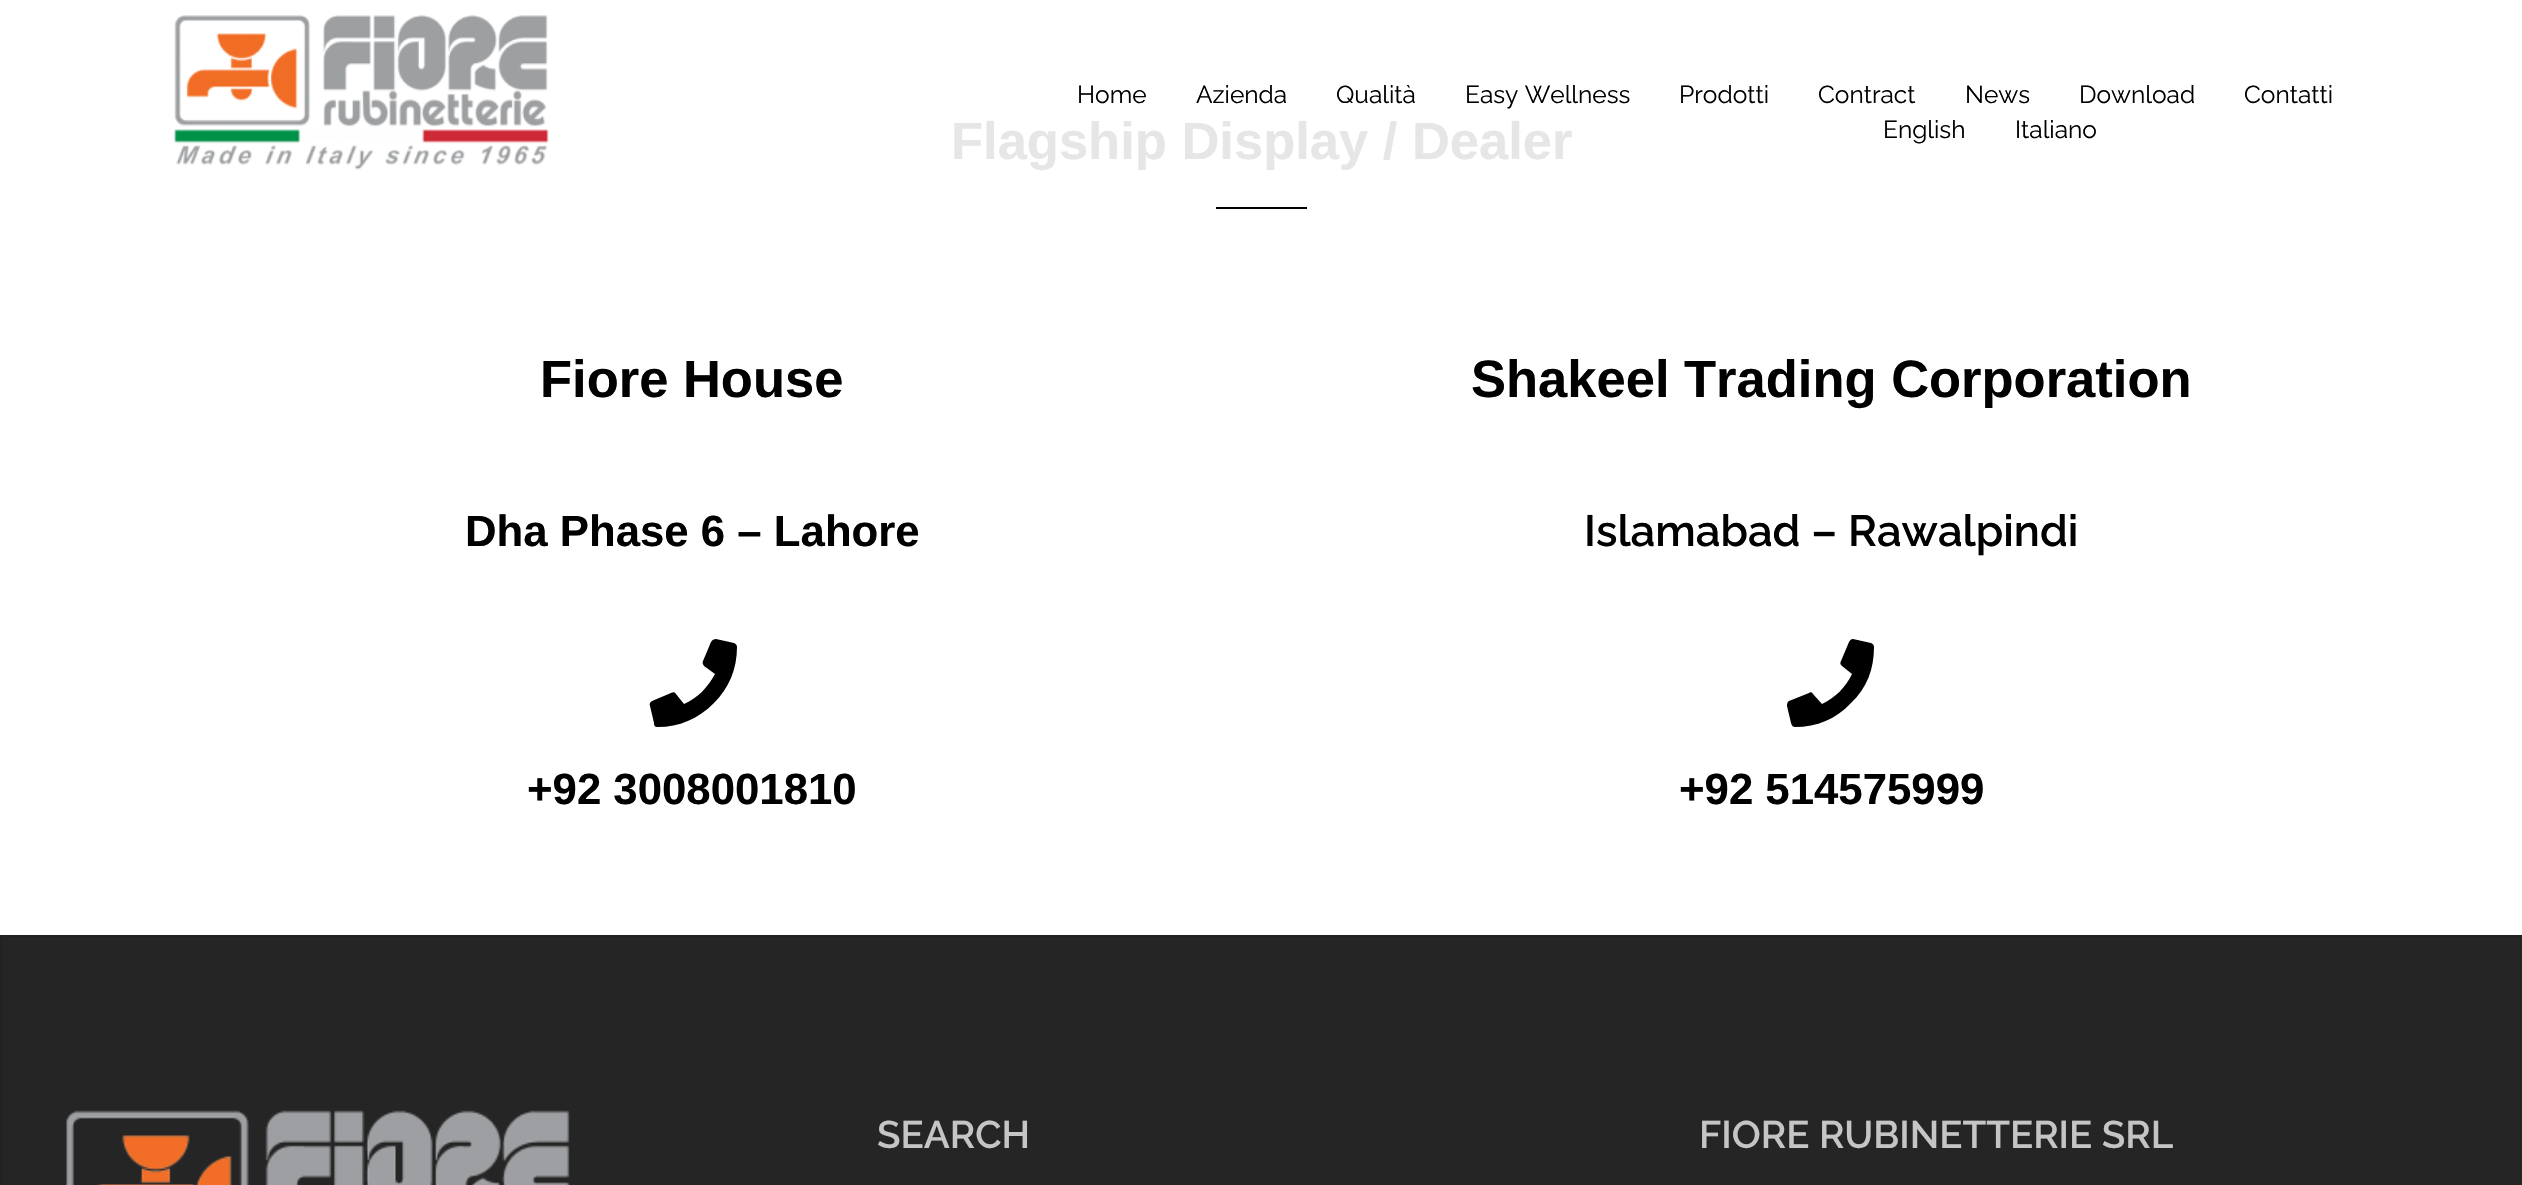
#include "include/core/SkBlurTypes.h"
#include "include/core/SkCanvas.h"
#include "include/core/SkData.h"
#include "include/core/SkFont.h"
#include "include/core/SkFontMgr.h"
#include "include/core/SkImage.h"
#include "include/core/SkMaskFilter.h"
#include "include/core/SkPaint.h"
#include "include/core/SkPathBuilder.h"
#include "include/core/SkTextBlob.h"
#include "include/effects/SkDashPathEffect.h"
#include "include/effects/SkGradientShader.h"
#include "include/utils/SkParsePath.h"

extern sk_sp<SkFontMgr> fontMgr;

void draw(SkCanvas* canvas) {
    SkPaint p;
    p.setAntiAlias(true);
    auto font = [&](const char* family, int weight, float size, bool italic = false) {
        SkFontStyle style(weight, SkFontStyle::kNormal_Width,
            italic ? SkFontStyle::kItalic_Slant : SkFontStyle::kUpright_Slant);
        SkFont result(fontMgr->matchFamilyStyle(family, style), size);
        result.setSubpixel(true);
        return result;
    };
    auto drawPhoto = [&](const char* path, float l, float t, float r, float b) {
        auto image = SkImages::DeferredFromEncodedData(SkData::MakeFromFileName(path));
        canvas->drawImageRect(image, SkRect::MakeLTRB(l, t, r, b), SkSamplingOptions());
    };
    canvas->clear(0xFFFFFFFF);
    drawPhoto("media/1.png", 174, 15, 549, 170);
    auto font1 = font("Raleway", 400, 24.5f);
    p.setColor(0xFF000000);
    {
        const struct { const char* s; float x, y; } items[] = {
            {"Home", 1077, 103},
            {"Azienda", 1196, 103},
            {"Qualità", 1336, 103},
            {"Easy Wellness", 1465, 103},
            {"Prodotti", 1679, 103},
            {"Contract", 1818, 103},
            {"News", 1965, 103},
            {"Download", 2079, 103},
            {"Contatti", 2244, 103},
            {"English", 1883, 138},
            {"Italiano", 2015, 138},
        };
        for (auto [s, x, y] : items) {
            canvas->drawString(s, x, y, font1, p);
        }
    }
    auto font2 = font("Liberation Sans", 700, 52.5f);
    p.setColor(0xFFE6E6E6);
    canvas->drawString("Flagship Display / Dealer", 951, 159, font2, p);
    p.setColor(0xFF000000);
    canvas->drawRect(SkRect::MakeLTRB(1216, 207, 1307, 209), p);
    canvas->drawString("Fiore House", 540, 397, font2, p);
    auto font3 = font("Liberation Sans", 700, 43.75f);
    canvas->drawString("Dha Phase 6 – Lahore", 465, 546, font3, p);
    canvas->drawPath(SkPathBuilder().moveTo(734, 643).cubicTo(736, 644, 737, 645, 737, 647).cubicTo(737, 669, 729, 688, 714, 703).cubicTo(698, 719, 679, 727, 658, 727).cubicTo(655, 727, 654, 726, 654, 723).lineTo(650, 706).cubicTo(649, 704, 650, 702, 652, 701).lineTo(671, 693).cubicTo(673, 692, 675, 692, 676, 694).lineTo(684, 704).cubicTo(698, 698, 708, 687, 715, 674).lineTo(704, 666).cubicTo(703, 664, 702, 663, 703, 661).lineTo(711, 642).cubicTo(712, 640, 714, 639, 716, 639).close().detach(), p);
    canvas->drawString("+92 3008001810", 527, 804, font3, p);
    canvas->drawString("Shakeel Trading Corporation", 1471, 397, font2, p);
    auto font4 = font("Raleway", 600, 43.75f);
    canvas->drawString("Islamabad – Rawalpindi", 1584, 546, font4, p);
    canvas->drawPath(SkPathBuilder().moveTo(1871, 643).cubicTo(1873, 644, 1874, 645, 1874, 647).cubicTo(1874, 669, 1867, 688, 1851, 703).cubicTo(1836, 719, 1817, 727, 1795, 727).cubicTo(1793, 727, 1792, 726, 1791, 723).lineTo(1787, 706).cubicTo(1787, 704, 1787, 702, 1789, 701).lineTo(1809, 693).cubicTo(1810, 692, 1812, 692, 1813, 694).lineTo(1822, 704).cubicTo(1835, 698, 1846, 687, 1852, 674).lineTo(1842, 666).cubicTo(1840, 664, 1840, 663, 1841, 661).lineTo(1849, 642).cubicTo(1850, 640, 1851, 639, 1853, 639).close().detach(), p);
    canvas->drawString("+92 514575999", 1679, 804, font3, p);
    p.setColor(0xFF252525);
    canvas->drawRect(SkRect::MakeLTRB(1, 936, 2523, 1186), p);
    p.setStyle(SkPaint::kStroke_Style);
    p.setStrokeWidth(2);
    p.setColor(0xFF212121);
    canvas->drawRect(SkRect::MakeLTRB(1, 936, 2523, 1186), p);
    drawPhoto("media/2.png", 66, 1110, 570, 1185);
    auto font5 = font("Raleway", 600, 38.5f);
    p.setStyle(SkPaint::kFill_Style);
    p.setColor(0xFFC5C5C5);
    canvas->drawString("SEARCH", 877, 1148, font5, p);
    canvas->drawString("FIORE RUBINETTERIE SRL", 1699, 1148, font5, p);
}
